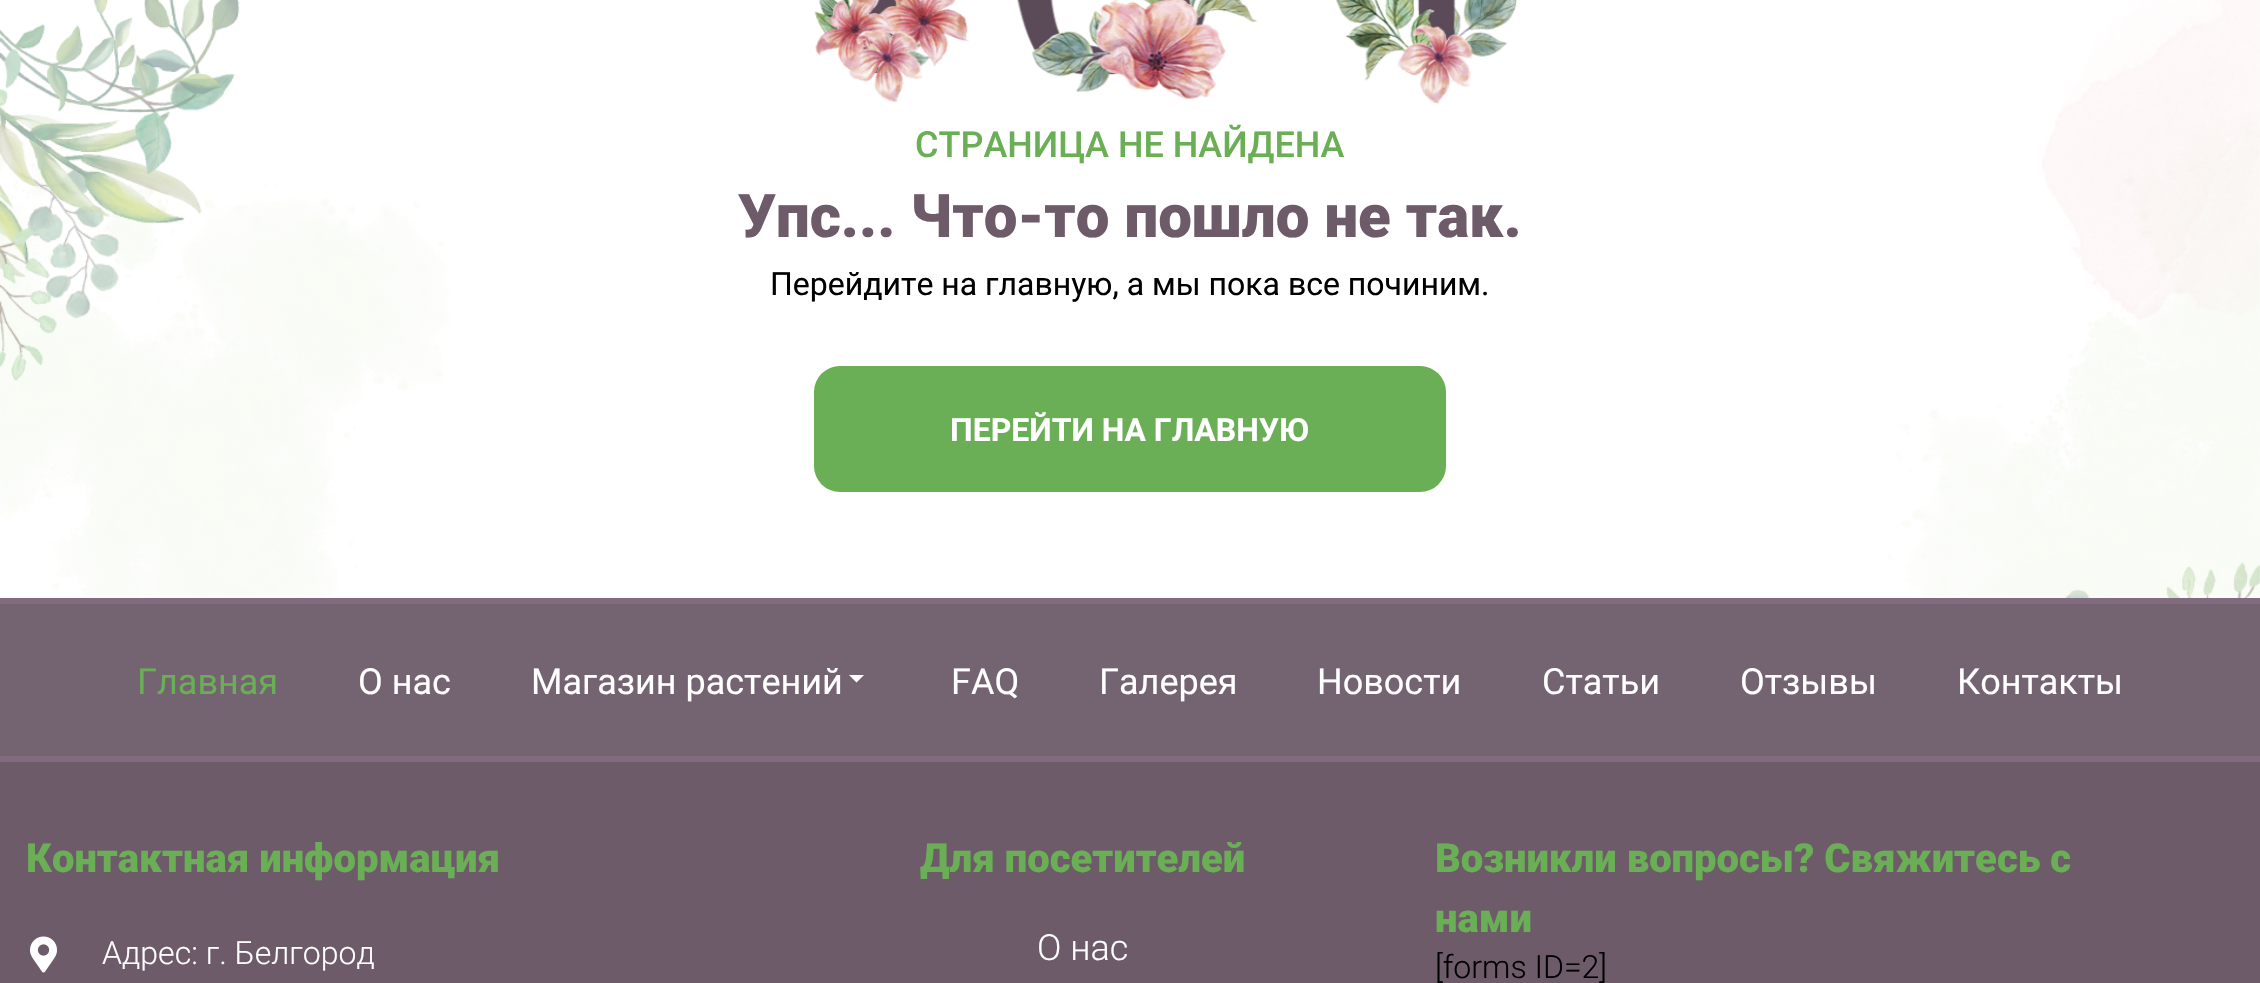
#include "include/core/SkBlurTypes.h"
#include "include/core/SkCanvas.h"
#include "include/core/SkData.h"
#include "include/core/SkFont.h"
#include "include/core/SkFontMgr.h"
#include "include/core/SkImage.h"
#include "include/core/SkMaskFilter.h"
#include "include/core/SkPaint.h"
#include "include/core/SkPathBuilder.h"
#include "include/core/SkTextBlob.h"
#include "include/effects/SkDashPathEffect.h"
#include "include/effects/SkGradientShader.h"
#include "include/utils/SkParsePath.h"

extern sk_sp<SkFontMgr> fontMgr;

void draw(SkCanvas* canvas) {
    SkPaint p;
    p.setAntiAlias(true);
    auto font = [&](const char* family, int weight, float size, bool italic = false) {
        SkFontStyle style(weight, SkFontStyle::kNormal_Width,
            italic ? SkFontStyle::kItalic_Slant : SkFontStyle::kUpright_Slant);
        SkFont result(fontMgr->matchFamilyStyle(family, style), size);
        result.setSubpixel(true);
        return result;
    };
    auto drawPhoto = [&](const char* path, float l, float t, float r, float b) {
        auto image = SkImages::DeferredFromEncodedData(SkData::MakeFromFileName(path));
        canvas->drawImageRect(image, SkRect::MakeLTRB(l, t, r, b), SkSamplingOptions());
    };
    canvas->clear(0xFFFFFFFF);
    drawPhoto("media/1.png", 0, 0, 2260, 598);
    drawPhoto("media/2.png", 814, 0, 1517, 104);
    auto font1 = font("Roboto", 500, 36);
    p.setColor(0xFF6AAE55);
    canvas->drawString("СТРАНИЦА НЕ НАЙДЕНА", 915, 157, font1, p);
    auto font2 = font("Roboto", 900, 60);
    p.setColor(0xFF6D5B6A);
    canvas->drawString("Упс... Что-то пошло не так.", 738, 237, font2, p);
    auto font3 = font("Roboto", 400, 32);
    p.setColor(0xFF000000);
    canvas->drawString("Перейдите на главную, а мы пока все починим.", 770, 295, font3, p);
    p.setColor(0xFF6AAE55);
    canvas->drawRoundRect(SkRect::MakeLTRB(814, 366, 1446, 492), 26, 26, p);
    auto font4 = font("Roboto", 700, 32);
    p.setColor(0xFFFFFFFF);
    canvas->drawString("ПЕРЕЙТИ НА ГЛАВНУЮ", 950, 441, font4, p);
    {
        const struct { float l, t, r, b; SkColor color; } items[] = {
            {0, 762, 2260, 983, 0xFF6D5B6A},
            {0, 604, 2260, 756, 0xFF746471},
            {0, 598, 2260, 604, 0xFF836B7F},
            {0, 756, 2260, 762, 0xFF836B7F},
        };
        for (auto [l, t, r, b, color] : items) {
            p.setColor(color);
            canvas->drawRect(SkRect::MakeLTRB(l, t, r, b), p);
        }
    }
    auto font5 = font("Roboto", 400, 36);
    p.setColor(0xFF6AAE55);
    canvas->drawString("Главная", 137, 694, font5, p);
    p.setColor(0xFFFFFFFF);
    canvas->drawString("О нас", 358, 694, font5, p);
    canvas->drawString("Магазин растений", 531, 694, font5, p);
    canvas->drawPath(SkPathBuilder().moveTo(849, 675).lineTo(864, 675).lineTo(856.5f, 682.5f).close().detach(), p);
    {
        const struct { const char* s; float x, y; } items[] = {
            {"FAQ", 951, 694},
            {"Галерея", 1099, 694},
            {"Новости", 1317, 694},
            {"Статьи", 1542, 694},
            {"Отзывы", 1740, 694},
            {"Контакты", 1957, 694},
        };
        for (auto [s, x, y] : items) {
            canvas->drawString(s, x, y, font5, p);
        }
    }
    auto font6 = font("Roboto", 900, 40);
    p.setColor(0xFF6AAE55);
    canvas->drawString("Контактная информация", 26, 872, font6, p);
    drawPhoto("media/3.png", 30, 936, 57, 973);
    auto font7 = font("Roboto", 300, 32);
    p.setColor(0xFFFFFFFF);
    canvas->drawString("Адрес: г. Белгород", 102, 964, font7, p);
    p.setColor(0xFF6AAE55);
    canvas->drawString("Для посетителей", 920, 872, font6, p);
    auto font8 = font("Roboto", 300, 36);
    p.setColor(0xFFFFFFFF);
    canvas->drawString("О нас", 1037, 960, font8, p);
    p.setColor(0xFF6AAE55);
    canvas->drawString("Возникли вопросы? Свяжитесь с", 1435, 872, font6, p);
    canvas->drawString("нами", 1435, 932, font6, p);
    p.setColor(0xFF000000);
    canvas->drawString("[forms ID=2]", 1435, 978, font7, p);
}
